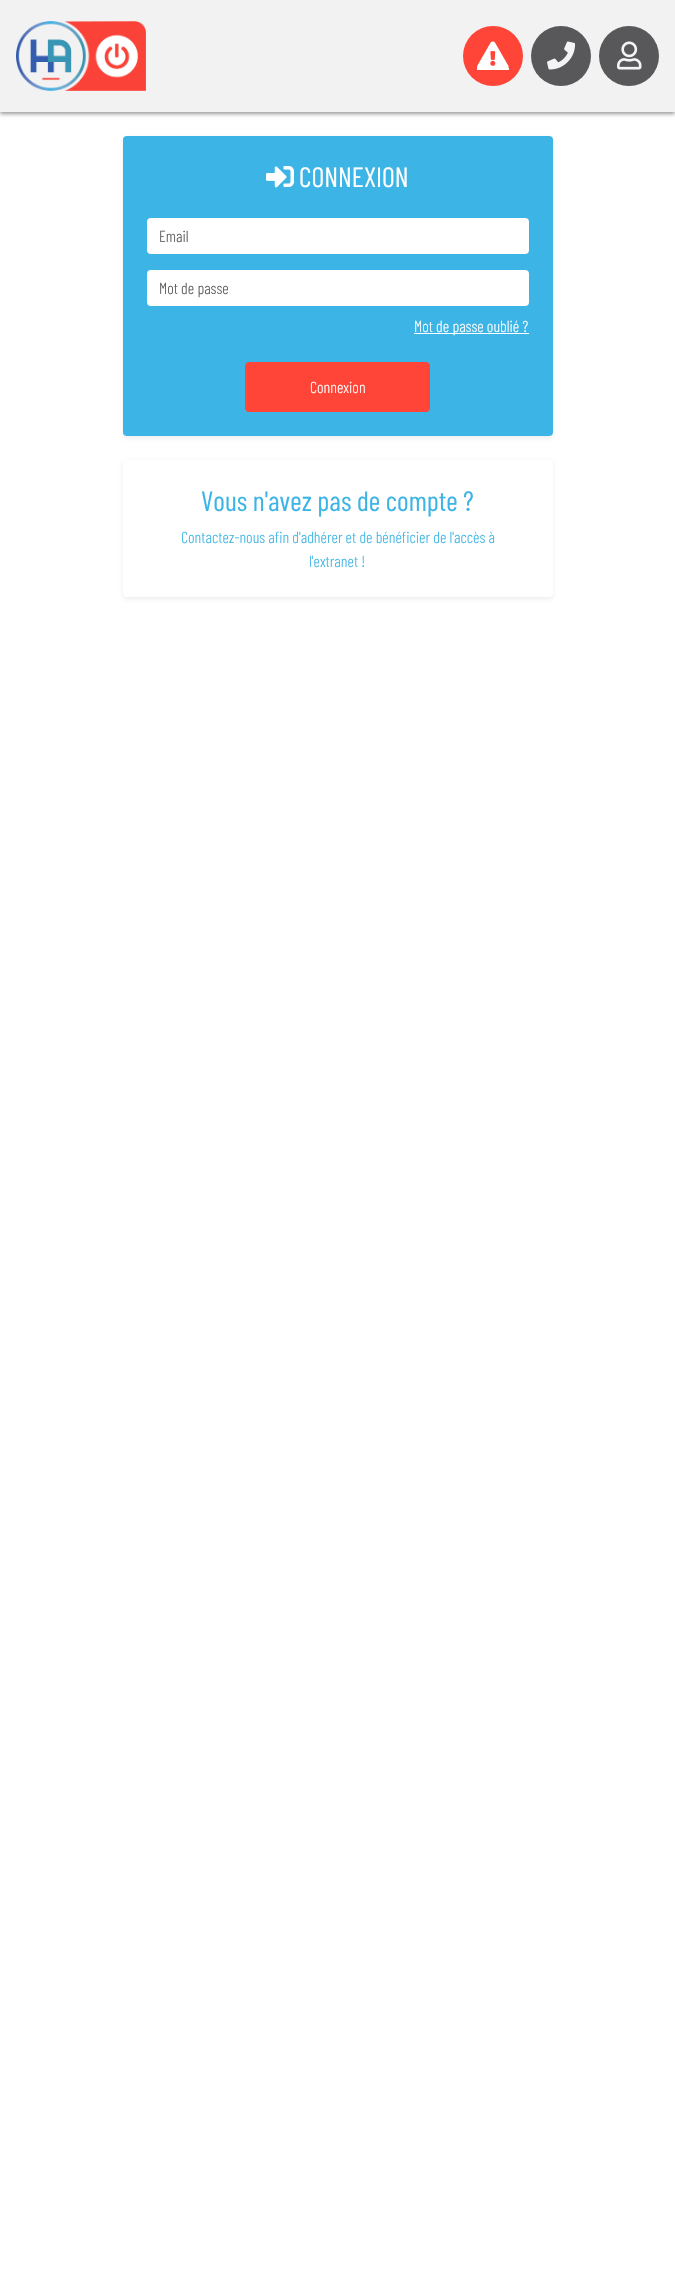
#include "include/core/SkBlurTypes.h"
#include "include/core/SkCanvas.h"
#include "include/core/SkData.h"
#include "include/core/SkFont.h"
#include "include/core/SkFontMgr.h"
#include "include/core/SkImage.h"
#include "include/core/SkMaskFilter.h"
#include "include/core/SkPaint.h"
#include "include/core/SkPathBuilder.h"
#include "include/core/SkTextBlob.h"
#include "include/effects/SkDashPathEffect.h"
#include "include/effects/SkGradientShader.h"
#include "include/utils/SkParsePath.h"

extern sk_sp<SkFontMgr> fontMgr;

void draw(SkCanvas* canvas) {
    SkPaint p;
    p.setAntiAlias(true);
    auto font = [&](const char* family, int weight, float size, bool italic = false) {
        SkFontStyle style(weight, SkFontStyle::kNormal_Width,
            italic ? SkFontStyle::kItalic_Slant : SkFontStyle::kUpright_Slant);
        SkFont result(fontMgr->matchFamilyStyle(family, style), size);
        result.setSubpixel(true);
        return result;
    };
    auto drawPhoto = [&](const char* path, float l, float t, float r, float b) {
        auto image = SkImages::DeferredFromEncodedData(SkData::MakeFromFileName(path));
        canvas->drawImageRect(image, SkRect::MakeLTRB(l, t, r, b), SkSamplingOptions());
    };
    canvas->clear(0xFFFFFFFF);
    p.setColor(0x66000000);
    p.setMaskFilter(SkMaskFilter::MakeBlur(kNormal_SkBlurStyle, 2));
    canvas->drawRect(SkRect::MakeLTRB(0, 2, 675, 114), p);
    p.setMaskFilter(nullptr);
    p.setColor(0xFFF2F2F2);
    canvas->drawRect(SkRect::MakeLTRB(0, 0, 675, 112), p);
    drawPhoto("media/1.png", 16, 21, 146, 91);
    p.setColor(0xFFFF4438);
    canvas->drawCircle(493, 56, 30, p);
    drawPhoto("media/2.png", 477, 41, 509, 68);
    p.setColor(0xFFFFFFFF);
    canvas->drawRect(SkRect::MakeLTRB(477, 68, 509, 70), p);
    p.setColor(0xFF58585A);
    canvas->drawCircle(561, 56, 30, p);
    drawPhoto("media/3.png", 547, 41, 576, 70);
    canvas->drawCircle(629, 56, 30, p);
    drawPhoto("media/4.png", 617, 41, 642, 70);
    p.setColor(0x12000000);
    p.setMaskFilter(SkMaskFilter::MakeBlur(kNormal_SkBlurStyle, 2));
    canvas->drawRoundRect(SkRect::MakeLTRB(123, 138, 553, 438), 4, 4, p);
    p.setMaskFilter(nullptr);
    p.setColor(0xFF3CB4E5);
    canvas->drawRoundRect(SkRect::MakeLTRB(123, 136, 553, 436), 4, 4, p);
    drawPhoto("media/5.png", 266, 166, 294, 188);
    auto font1 = font("Barlow Condensed", 400, 28);
    p.setColor(0xFFFFFFFF);
    canvas->drawString("CONNEXION", 299, 187, font1, p);
    canvas->drawRoundRect(SkRect::MakeLTRB(147, 218, 529, 254), 4, 4, p);
    auto font2 = font("Barlow Condensed", 300, 16);
    p.setColor(0xFF58585A);
    canvas->drawString("Email", 159, 242, font2, p);
    p.setColor(0xFFFFFFFF);
    canvas->drawRoundRect(SkRect::MakeLTRB(147, 270, 529, 306), 4, 4, p);
    p.setColor(0xFF58585A);
    canvas->drawString("Mot de passe", 159, 294, font2, p);
    p.setColor(0xFFFFFFFF);
    canvas->drawRect(SkRect::MakeLTRB(414, 333, 529, 334), p);
    canvas->drawString("Mot de passe oublié ?", 414, 332, font2, p);
    p.setColor(0xFFFF4438);
    canvas->drawRoundRect(SkRect::MakeLTRB(245.5f, 362.5f, 429.5f, 411.5f), 3.5f, 3.5f, p);
    p.setStyle(SkPaint::kStroke_Style);
    p.setStrokeWidth(1);
    canvas->drawRoundRect(SkRect::MakeLTRB(245.5f, 362.5f, 429.5f, 411.5f), 3.5f, 3.5f, p);
    p.setStyle(SkPaint::kFill_Style);
    p.setColor(0xFFFFFFFF);
    canvas->drawString("Connexion", 310, 393, font2, p);
    p.setColor(0x12000000);
    p.setMaskFilter(SkMaskFilter::MakeBlur(kNormal_SkBlurStyle, 2));
    canvas->drawRoundRect(SkRect::MakeLTRB(123, 462, 553, 599), 4, 4, p);
    p.setMaskFilter(nullptr);
    p.setColor(0xFFFFFFFF);
    canvas->drawRoundRect(SkRect::MakeLTRB(123, 460, 553, 597), 4, 4, p);
    p.setColor(0xFF3CB4E5);
    canvas->drawString("Vous n'avez pas de compte ?", 201, 511, font1, p);
    canvas->drawString("Contactez-nous afin d'adhérer et de bénéficier de l'accès à", 181, 543, font2, p);
    canvas->drawString("l'extranet !", 309, 567, font2, p);
}
